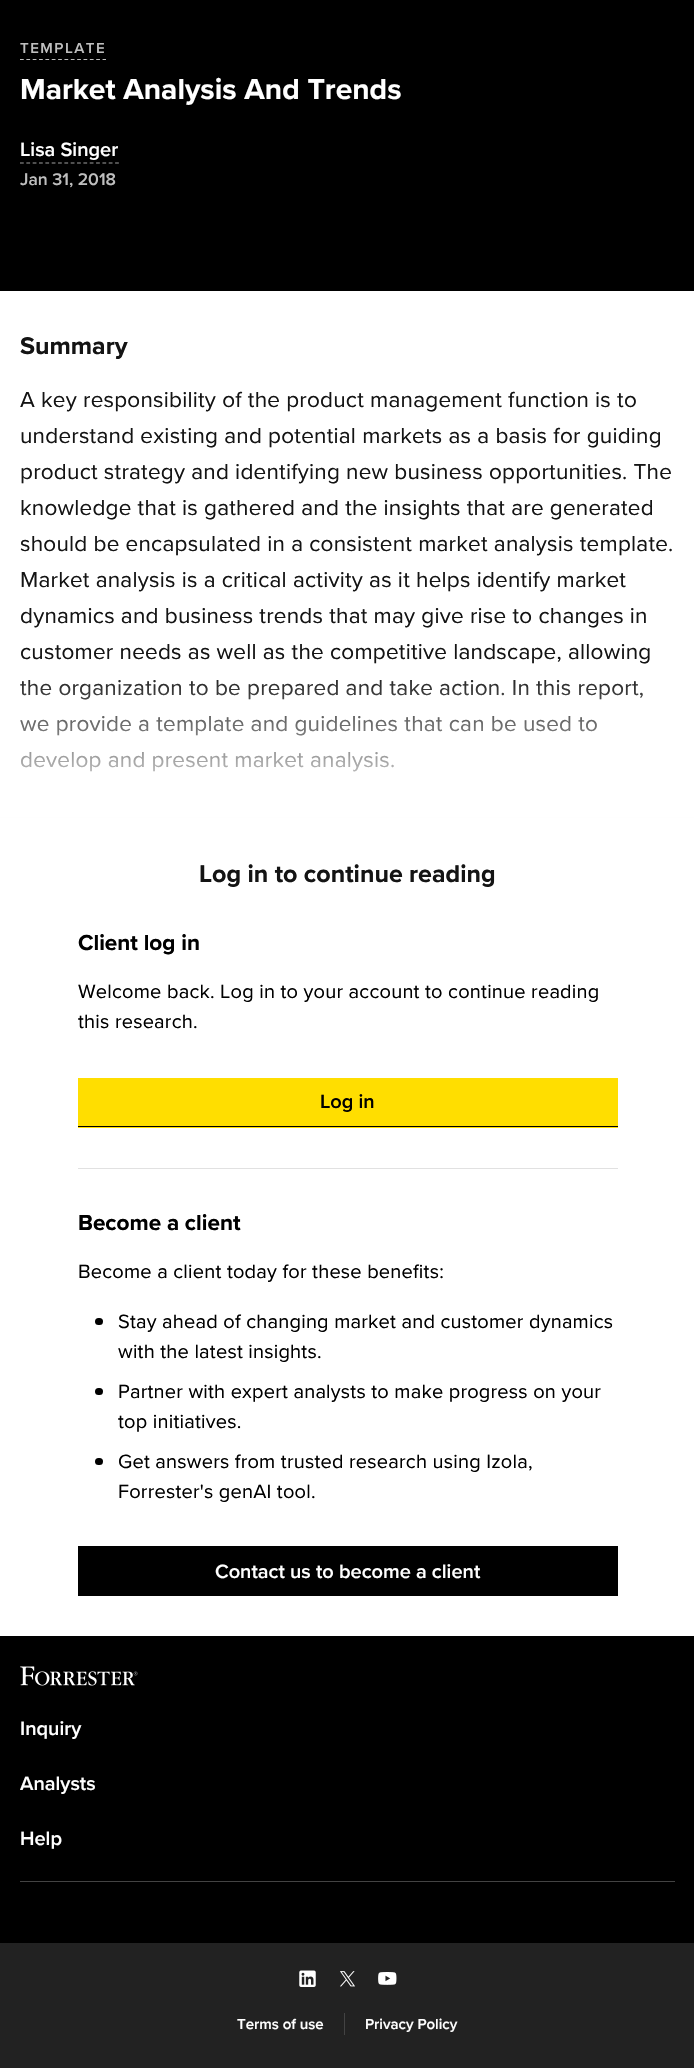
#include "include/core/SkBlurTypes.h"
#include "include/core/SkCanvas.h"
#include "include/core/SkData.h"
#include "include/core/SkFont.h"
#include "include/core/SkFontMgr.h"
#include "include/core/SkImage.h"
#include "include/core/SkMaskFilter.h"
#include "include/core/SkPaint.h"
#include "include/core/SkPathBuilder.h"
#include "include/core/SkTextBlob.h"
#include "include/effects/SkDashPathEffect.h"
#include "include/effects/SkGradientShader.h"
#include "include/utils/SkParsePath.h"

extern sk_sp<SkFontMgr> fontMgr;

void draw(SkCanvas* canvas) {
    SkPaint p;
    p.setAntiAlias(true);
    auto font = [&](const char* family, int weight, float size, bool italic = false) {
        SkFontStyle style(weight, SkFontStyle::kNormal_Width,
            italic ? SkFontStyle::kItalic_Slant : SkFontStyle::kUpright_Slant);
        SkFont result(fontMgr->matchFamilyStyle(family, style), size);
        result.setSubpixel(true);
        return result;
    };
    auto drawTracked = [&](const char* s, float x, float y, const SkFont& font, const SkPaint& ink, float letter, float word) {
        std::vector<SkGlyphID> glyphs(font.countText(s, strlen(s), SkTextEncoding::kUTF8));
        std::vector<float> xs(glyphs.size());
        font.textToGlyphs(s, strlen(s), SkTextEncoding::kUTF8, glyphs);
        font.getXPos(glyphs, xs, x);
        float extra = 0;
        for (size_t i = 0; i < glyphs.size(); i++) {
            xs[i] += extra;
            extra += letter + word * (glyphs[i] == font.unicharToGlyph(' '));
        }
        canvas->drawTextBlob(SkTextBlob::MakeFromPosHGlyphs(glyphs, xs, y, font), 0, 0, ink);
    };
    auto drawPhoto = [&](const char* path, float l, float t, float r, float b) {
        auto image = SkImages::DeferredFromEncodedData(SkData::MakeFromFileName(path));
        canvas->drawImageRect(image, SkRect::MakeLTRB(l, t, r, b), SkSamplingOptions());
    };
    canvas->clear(0xFF000000);
    p.setStyle(SkPaint::kStroke_Style);
    p.setStrokeWidth(1.2f);
    p.setColor(0xFFBEBEBE);
    p.setPathEffect(SkDashPathEffect::Make({{3.75f, 2.6f}}, 0));
    canvas->drawPath(SkPathBuilder().moveTo(20, 59.5f).lineTo(106, 59.5f).detach(), p);
    p.setPathEffect(nullptr);
    auto font1 = font("Proxima Nova", 600, 15);
    p.setStyle(SkPaint::kFill_Style);
    drawTracked("TEMPLATE", 20, 53, font1, p, 1.5f, 0);
    auto font2 = font("Proxima Nova", 700, 30);
    p.setColor(0xFFFFFFFF);
    canvas->drawString("Market Analysis And Trends", 20, 99, font2, p);
    p.setStyle(SkPaint::kStroke_Style);
    p.setColor(0xFF9F9F9F);
    p.setPathEffect(SkDashPathEffect::Make({{3.75f, 2.59f}}, 0));
    canvas->drawPath(SkPathBuilder().moveTo(20, 163).lineTo(119, 163).detach(), p);
    p.setPathEffect(nullptr);
    auto font3 = font("Proxima Nova", 600, 20);
    p.setStyle(SkPaint::kFill_Style);
    p.setColor(0xFFFFFFFF);
    canvas->drawString("Lisa Singer", 20, 156, font3, p);
    auto font4 = font("Proxima Nova", 600, 17.5f);
    p.setColor(0xFFBEBEBE);
    canvas->drawString("Jan 31, 2018", 20, 185, font4, p);
    p.setColor(0xFFFFFFFF);
    canvas->drawRect(SkRect::MakeLTRB(0, 291, 694, 817), p);
    auto font5 = font("Proxima Nova", 700, 25);
    p.setColor(0xFF141414);
    canvas->drawString("Summary", 20, 354, font5, p);
    auto font6 = font("Proxima Nova", 400, 22.5f);
    {
        const struct { const char* s; float x, y; } items[] = {
            {"A key responsibility of the product management function is to", 20, 407},
            {"understand existing and potential markets as a basis for guiding", 20, 443},
            {"product strategy and identifying new business opportunities. The", 20, 479},
            {"knowledge that is gathered and the insights that are generated", 20, 515},
            {"should be encapsulated in a consistent market analysis template.", 20, 551},
            {"Market analysis is a critical activity as it helps identify market", 20, 587},
            {"dynamics and business trends that may give rise to changes in", 20, 623},
            {"customer needs as well as the competitive landscape, allowing", 20, 659},
            {"the organization to be prepared and take action. In this report,", 20, 695},
            {"we provide a template and guidelines that can be used to", 20, 731},
            {"develop and present market analysis.", 20, 767},
        };
        for (auto [s, x, y] : items) {
            drawTracked(s, x, y, font6, p, 0.22f, 0);
        }
    }
    p.setColor(0xFFFFFFFF);
    canvas->drawRect(SkRect::MakeLTRB(0, 818, 694, 1636), p);
    {
        const SkColor colors[] = {0x00FFFFFF, 0xFFFFFFFF};
        const float stops[] = {0, 1};
        const SkPoint ends[] = {{348, 668}, {348, 818}};
        p.setShader(SkGradientShader::MakeLinear(ends, colors, stops, 2, SkTileMode::kClamp));
        p.setAlpha(255);
    }
    canvas->drawRect(SkRect::MakeLTRB(0, 680, 694, 818), p);
    p.setShader(nullptr);
    p.setColor(0xFF141414);
    canvas->drawString("Log in to continue reading", 199, 882, font5, p);
    auto font7 = font("Proxima Nova", 700, 22.5f);
    p.setColor(0xFF000000);
    canvas->drawString("Client log in", 78, 950, font7, p);
    auto font8 = font("Proxima Nova", 400, 20);
    drawTracked("Welcome back. Log in to your account to continue reading", 78, 998, font8, p, 0.2f, 0);
    drawTracked("this research.", 78, 1028, font8, p, 0.2f, 0);
    p.setColor(0xFFFFDE00);
    canvas->drawRect(SkRect::MakeLTRB(78, 1078, 618, 1128), p);
    p.setColor(0xFF000000);
    canvas->drawRect(SkRect::MakeLTRB(78, 1126, 618, 1127), p);
    canvas->drawString("Log in", 320, 1108, font3, p);
    p.setColor(0xFFE1E1E1);
    canvas->drawRect(SkRect::MakeLTRB(78, 1168, 618, 1169), p);
    p.setColor(0xFF000000);
    canvas->drawString("Become a client", 78, 1230, font7, p);
    drawTracked("Become a client today for these benefits:", 78, 1278, font8, p, 0.2f, 0);
    canvas->drawRoundRect(SkRect::MakeLTRB(95, 1318, 103, 1325), 3.5f, 3.5f, p);
    drawTracked("Stay ahead of changing market and customer dynamics", 118, 1328, font8, p, 0.2f, 0);
    drawTracked("with the latest insights.", 118, 1358, font8, p, 0.2f, 0);
    canvas->drawRoundRect(SkRect::MakeLTRB(95, 1388, 103, 1395), 3.5f, 3.5f, p);
    drawTracked("Partner with expert analysts to make progress on your", 118, 1398, font8, p, 0.2f, 0);
    drawTracked("top initiatives.", 118, 1428, font8, p, 0.2f, 0);
    canvas->drawRoundRect(SkRect::MakeLTRB(95, 1458, 103, 1465), 3.5f, 3.5f, p);
    drawTracked("Get answers from trusted research using Izola,", 118, 1468, font8, p, 0.2f, 0);
    drawTracked("Forrester's genAI tool.", 118, 1498, font8, p, 0.2f, 0);
    canvas->drawRect(SkRect::MakeLTRB(78, 1546, 618, 1596), p);
    p.setColor(0xFFFFFFFF);
    canvas->drawString("Contact us to become a client", 215, 1578, font3, p);
    drawPhoto("media/1.png", 20, 1666, 138, 1686);
    {
        const struct { const char* s; float x, y; } items[] = {
            {"Inquiry", 20, 1735},
            {"Analysts", 20, 1790},
            {"Help", 20, 1845},
        };
        for (auto [s, x, y] : items) {
            canvas->drawString(s, x, y, font3, p);
        }
    }
    p.setColor(0xFF434343);
    canvas->drawRect(SkRect::MakeLTRB(20, 1881, 675, 1882), p);
    p.setColor(0xFF222222);
    canvas->drawRect(SkRect::MakeLTRB(0, 1943, 694, 2068), p);
    drawPhoto("media/2.png", 299, 1970, 316, 1987);
    drawPhoto("media/3.png", 340, 1971, 355, 1987);
    drawPhoto("media/4.png", 378, 1972, 397, 1985);
    p.setColor(0xFFFFFFFF);
    canvas->drawString("Terms of use", 237, 2029, font1, p);
    p.setColor(0xFF434343);
    canvas->drawRect(SkRect::MakeLTRB(344, 2013, 345, 2035), p);
    p.setColor(0xFFFFFFFF);
    canvas->drawString("Privacy Policy", 365, 2029, font1, p);
}
